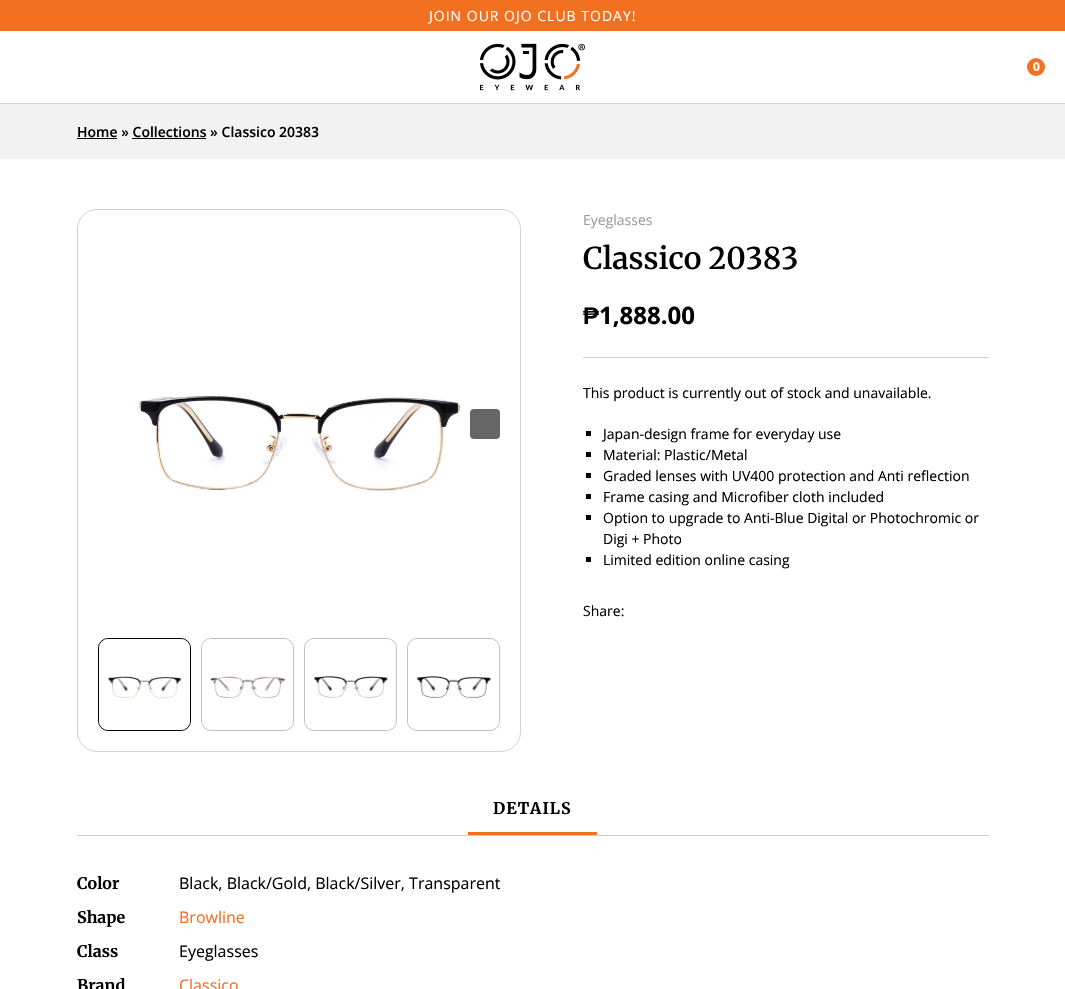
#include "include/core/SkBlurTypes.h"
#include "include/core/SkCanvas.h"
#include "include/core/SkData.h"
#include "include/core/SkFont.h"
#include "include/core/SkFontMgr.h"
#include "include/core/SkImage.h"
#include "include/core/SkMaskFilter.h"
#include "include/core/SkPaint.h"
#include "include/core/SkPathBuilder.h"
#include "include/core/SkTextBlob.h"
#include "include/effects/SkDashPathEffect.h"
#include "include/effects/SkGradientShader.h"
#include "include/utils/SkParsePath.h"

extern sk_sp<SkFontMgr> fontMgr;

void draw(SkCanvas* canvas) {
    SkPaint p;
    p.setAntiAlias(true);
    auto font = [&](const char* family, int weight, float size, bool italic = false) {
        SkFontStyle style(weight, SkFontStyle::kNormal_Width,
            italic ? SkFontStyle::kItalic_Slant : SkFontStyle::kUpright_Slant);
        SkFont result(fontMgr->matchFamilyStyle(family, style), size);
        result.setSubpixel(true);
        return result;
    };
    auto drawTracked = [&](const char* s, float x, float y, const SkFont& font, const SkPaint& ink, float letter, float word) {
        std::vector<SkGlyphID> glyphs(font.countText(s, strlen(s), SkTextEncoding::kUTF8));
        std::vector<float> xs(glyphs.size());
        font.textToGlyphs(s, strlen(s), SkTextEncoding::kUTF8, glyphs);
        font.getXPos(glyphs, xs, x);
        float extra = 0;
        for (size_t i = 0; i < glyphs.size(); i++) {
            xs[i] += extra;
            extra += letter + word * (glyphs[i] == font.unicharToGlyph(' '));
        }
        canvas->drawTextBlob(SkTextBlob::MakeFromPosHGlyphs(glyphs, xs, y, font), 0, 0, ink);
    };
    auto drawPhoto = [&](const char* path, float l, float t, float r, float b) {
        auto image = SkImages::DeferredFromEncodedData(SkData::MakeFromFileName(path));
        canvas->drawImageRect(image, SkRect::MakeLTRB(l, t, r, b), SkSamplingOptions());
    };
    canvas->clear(0xFFFFFFFF);
    p.setColor(0xFFF37021);
    canvas->drawRect(SkRect::MakeLTRB(0, 0, 1065, 31), p);
    auto font1 = font("Open Sans", 400, 14);
    p.setColor(0xFFFFFFFF);
    drawTracked("JOIN OUR OJO CLUB TODAY!", 429, 21, font1, p, 1, 0);
    p.setColor(0xFFD1D1D1);
    canvas->drawRect(SkRect::MakeLTRB(0, 103, 1065, 104), p);
    drawPhoto("media/1.png", 480, 43, 585, 91);
    p.setColor(0xFFF37021);
    canvas->drawCircle(1036, 67, 9, p);
    auto font2 = font("Open Sans", 700, 12);
    p.setColor(0xFFFFFFFF);
    canvas->drawString("0", 1033, 71, font2, p);
    p.setColor(0xFFF2F2F2);
    canvas->drawRect(SkRect::MakeLTRB(0, 104, 1065, 159), p);
    auto font3 = font("Open Sans", 600, 14);
    p.setColor(0xFF000000);
    canvas->drawString("Home » Collections » Classico 20383", 77, 137, font3, p);
    canvas->drawRect(SkRect::MakeLTRB(77, 138, 117, 139), p);
    canvas->drawRect(SkRect::MakeLTRB(132, 138, 206, 139), p);
    p.setStyle(SkPaint::kStroke_Style);
    p.setStrokeWidth(1);
    p.setColor(0xFFD1D1D1);
    canvas->drawRoundRect(SkRect::MakeLTRB(77.5f, 209.5f, 520.5f, 751.5f), 19.5f, 19.5f, p);
    drawPhoto("media/2.png", 136, 395, 461, 492);
    p.setStyle(SkPaint::kFill_Style);
    p.setColor(0xFF666666);
    canvas->drawRoundRect(SkRect::MakeLTRB(470, 409, 500, 439), 4, 4, p);
    p.setStyle(SkPaint::kStroke_Style);
    p.setColor(0xFF000000);
    canvas->drawRoundRect(SkRect::MakeLTRB(98.5f, 638.5f, 190.5f, 730.5f), 9.5f, 9.5f, p);
    drawPhoto("media/3.png", 99, 639, 190, 730);
    p.setColor(0xFFBFBFBF);
    canvas->drawRoundRect(SkRect::MakeLTRB(201.5f, 638.5f, 293.5f, 730.5f), 9.5f, 9.5f, p);
    drawPhoto("media/4.png", 202, 639, 293, 730);
    canvas->drawRoundRect(SkRect::MakeLTRB(304.5f, 638.5f, 396.5f, 730.5f), 9.5f, 9.5f, p);
    drawPhoto("media/5.png", 305, 639, 396, 730);
    canvas->drawRoundRect(SkRect::MakeLTRB(407.5f, 638.5f, 499.5f, 730.5f), 9.5f, 9.5f, p);
    drawPhoto("media/6.png", 408, 639, 499, 730);
    p.setStyle(SkPaint::kFill_Style);
    p.setColor(0xFF9E9E9E);
    canvas->drawString("Eyeglasses", 583, 225, font1, p);
    auto font4 = font("Merriweather", 600, 30);
    p.setColor(0xFF000000);
    canvas->drawString("Classico 20383", 583, 269, font4, p);
    auto font5 = font("Liberation Sans", 700, 24);
    canvas->drawString("₱", 583, 324, font5, p);
    auto font6 = font("Open Sans", 700, 24);
    canvas->drawString("1,888.00", 599, 324, font6, p);
    p.setColor(0xFFD1D1D1);
    canvas->drawRect(SkRect::MakeLTRB(583, 357, 989, 358), p);
    p.setColor(0xFF000000);
    canvas->drawString("This product is currently out of stock and unavailable.", 583, 398, font1, p);
    canvas->drawRect(SkRect::MakeLTRB(586, 431, 591, 436), p);
    canvas->drawString("Japan-design frame for everyday use", 603, 439, font1, p);
    canvas->drawRect(SkRect::MakeLTRB(586, 452, 591, 457), p);
    canvas->drawString("Material: Plastic/Metal", 603, 460, font1, p);
    canvas->drawRect(SkRect::MakeLTRB(586, 473, 591, 478), p);
    canvas->drawString("Graded lenses with UV400 protection and Anti reflection", 603, 481, font1, p);
    canvas->drawRect(SkRect::MakeLTRB(586, 494, 591, 499), p);
    canvas->drawString("Frame casing and Microfiber cloth included", 603, 502, font1, p);
    canvas->drawRect(SkRect::MakeLTRB(586, 515, 591, 520), p);
    canvas->drawString("Option to upgrade to Anti-Blue Digital or Photochromic or", 603, 523, font1, p);
    canvas->drawString("Digi + Photo", 603, 544, font1, p);
    canvas->drawRect(SkRect::MakeLTRB(586, 557, 591, 562), p);
    canvas->drawString("Limited edition online casing", 603, 565, font1, p);
    canvas->drawString("Share:", 583, 616, font1, p);
    p.setColor(0xFFCCCCCC);
    canvas->drawRect(SkRect::MakeLTRB(77, 835, 989, 836), p);
    p.setColor(0xFFF37021);
    canvas->drawRect(SkRect::MakeLTRB(468, 832, 597, 835), p);
    auto font7 = font("Merriweather", 700, 16);
    p.setColor(0xFF000000);
    drawTracked("DETAILS", 493, 814, font7, p, 1, 0);
    canvas->drawString("Color", 77, 889, font7, p);
    auto font8 = font("Open Sans", 400, 16);
    canvas->drawString("Black, Black/Gold, Black/Silver, Transparent", 179, 889, font8, p);
    canvas->drawString("Shape", 77, 923, font7, p);
    p.setColor(0xFFF37021);
    canvas->drawString("Browline", 179, 923, font8, p);
    p.setColor(0xFF000000);
    canvas->drawString("Class", 77, 957, font7, p);
    canvas->drawString("Eyeglasses", 179, 957, font8, p);
    canvas->drawString("Brand", 77, 991, font7, p);
    p.setColor(0xFFF37021);
    canvas->drawString("Classico", 179, 991, font8, p);
}
